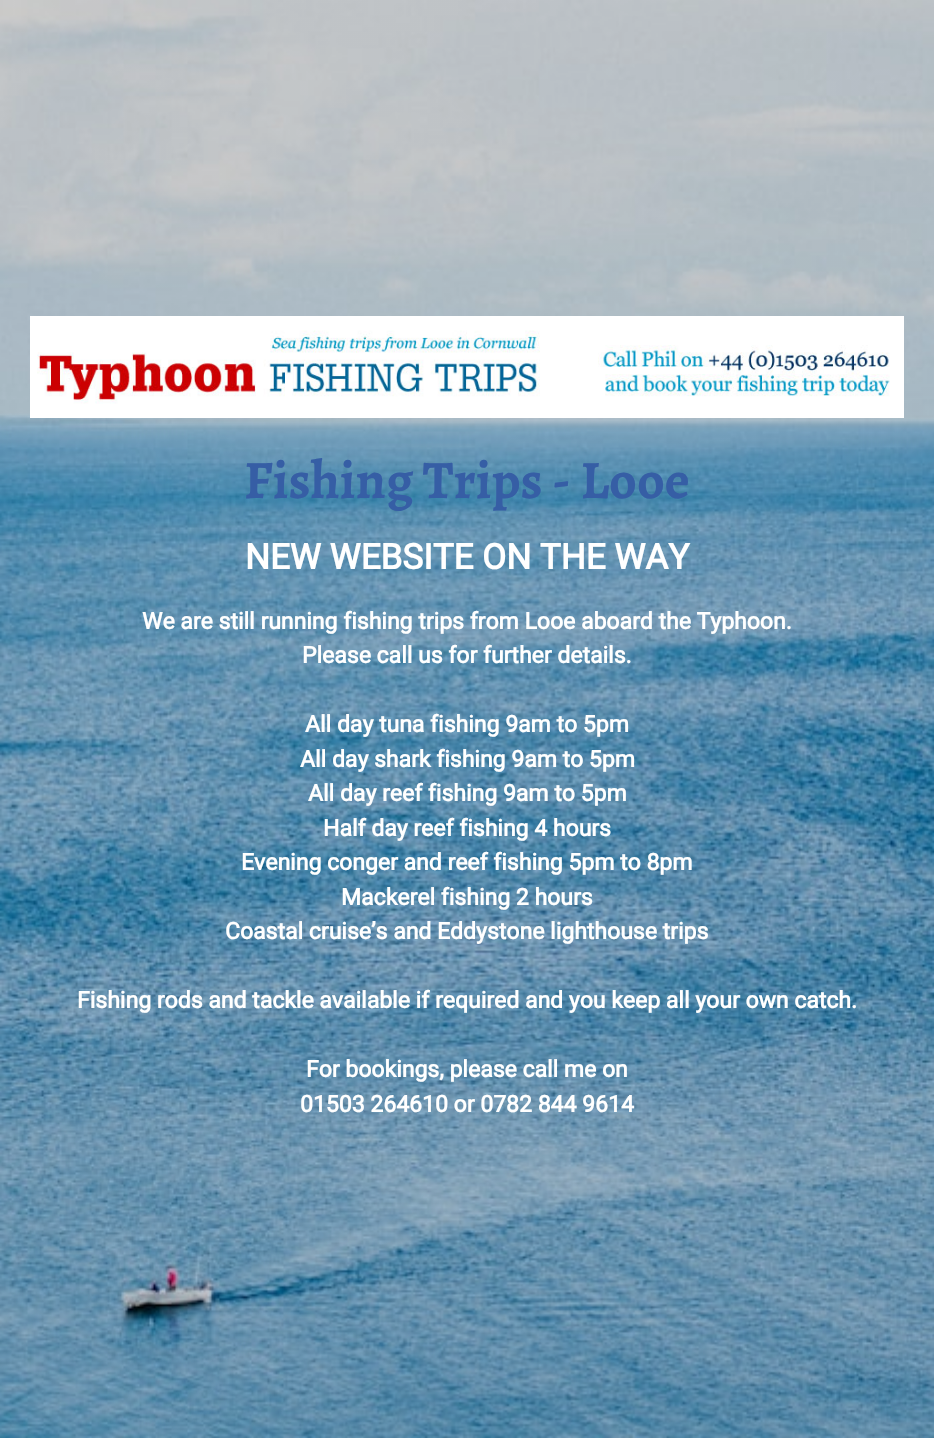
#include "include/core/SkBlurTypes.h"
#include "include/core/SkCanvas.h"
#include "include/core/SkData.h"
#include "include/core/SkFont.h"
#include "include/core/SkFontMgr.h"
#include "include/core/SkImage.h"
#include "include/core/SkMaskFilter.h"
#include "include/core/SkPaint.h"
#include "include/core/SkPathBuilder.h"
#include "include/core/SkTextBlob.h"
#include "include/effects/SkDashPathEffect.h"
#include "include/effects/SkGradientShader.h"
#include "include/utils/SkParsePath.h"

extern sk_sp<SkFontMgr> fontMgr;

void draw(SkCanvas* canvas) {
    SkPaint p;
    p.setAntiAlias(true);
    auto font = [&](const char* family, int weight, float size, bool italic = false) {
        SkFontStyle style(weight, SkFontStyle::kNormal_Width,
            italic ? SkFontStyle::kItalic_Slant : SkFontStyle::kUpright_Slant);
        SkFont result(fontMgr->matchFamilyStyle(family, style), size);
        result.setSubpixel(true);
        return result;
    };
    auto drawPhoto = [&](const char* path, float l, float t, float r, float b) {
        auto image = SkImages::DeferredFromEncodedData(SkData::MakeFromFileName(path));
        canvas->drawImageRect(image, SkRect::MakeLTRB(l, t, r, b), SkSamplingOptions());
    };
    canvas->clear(0xFFFFFFFF);
    drawPhoto("media/1.png", 0, 0, 934, 1438);
    drawPhoto("media/2.png", 30, 316, 904, 418);
    auto font1 = font("Alegreya", 700, 54);
    p.setColor(0xFF365EA5);
    canvas->drawString("Fishing Trips - Looe", 244, 498, font1, p);
    auto font2 = font("Roboto", 700, 35);
    p.setColor(0xFFFFFFFF);
    canvas->drawString("NEW WEBSITE ON THE WAY", 245, 569, font2, p);
    auto font3 = font("Roboto", 700, 23);
    {
        const struct { const char* s; float x, y; } items[] = {
            {"We are still running fishing trips from Looe aboard the Typhoon.", 142, 629},
            {"Please call us for further details.", 302, 663},
            {"All day tuna fishing 9am to 5pm", 305, 732},
            {"All day shark fishing 9am to 5pm", 300, 767},
            {"All day reef fishing 9am to 5pm", 308, 801},
            {"Half day reef fishing 4 hours", 323, 836},
            {"Evening conger and reef fishing 5pm to 8pm", 241, 870},
            {"Mackerel fishing 2 hours", 341, 905},
            {"Coastal cruise’s and Eddystone lighthouse trips", 225, 939},
            {"Fishing rods and tackle available if required and you keep all your own catch.", 77, 1008},
            {"For bookings, please call me on", 306, 1077},
            {"01503 264610 or 0782 844 9614", 300, 1112},
        };
        for (auto [s, x, y] : items) {
            canvas->drawString(s, x, y, font3, p);
        }
    }
}
